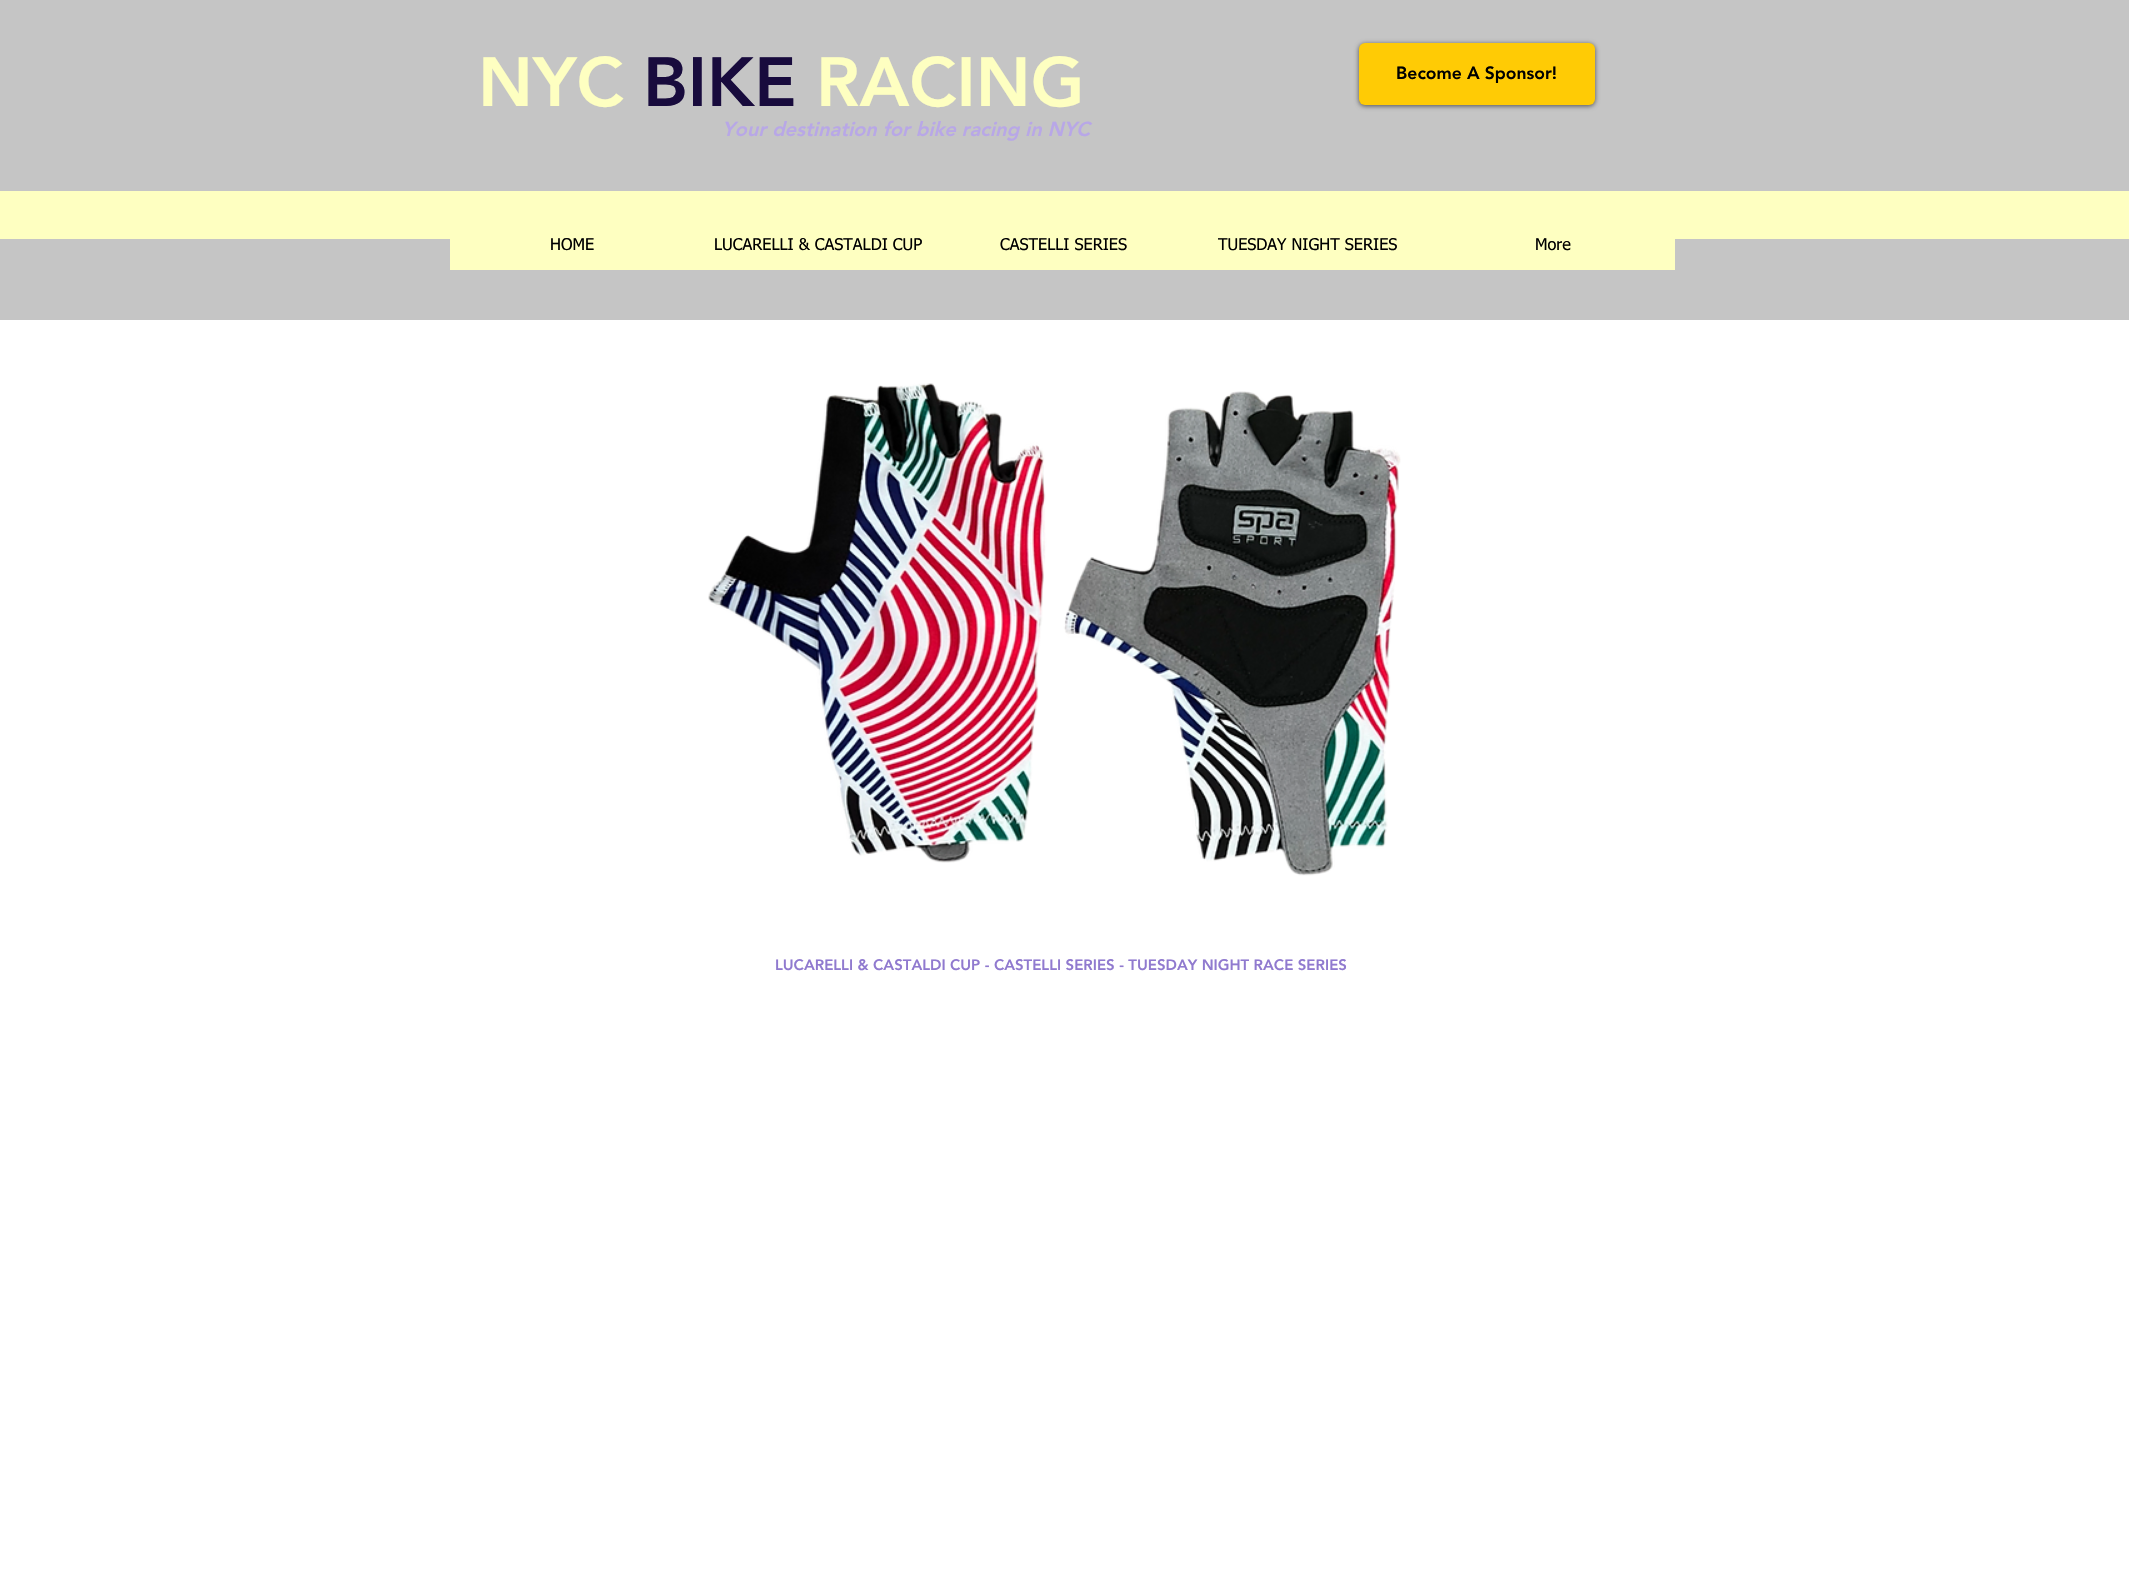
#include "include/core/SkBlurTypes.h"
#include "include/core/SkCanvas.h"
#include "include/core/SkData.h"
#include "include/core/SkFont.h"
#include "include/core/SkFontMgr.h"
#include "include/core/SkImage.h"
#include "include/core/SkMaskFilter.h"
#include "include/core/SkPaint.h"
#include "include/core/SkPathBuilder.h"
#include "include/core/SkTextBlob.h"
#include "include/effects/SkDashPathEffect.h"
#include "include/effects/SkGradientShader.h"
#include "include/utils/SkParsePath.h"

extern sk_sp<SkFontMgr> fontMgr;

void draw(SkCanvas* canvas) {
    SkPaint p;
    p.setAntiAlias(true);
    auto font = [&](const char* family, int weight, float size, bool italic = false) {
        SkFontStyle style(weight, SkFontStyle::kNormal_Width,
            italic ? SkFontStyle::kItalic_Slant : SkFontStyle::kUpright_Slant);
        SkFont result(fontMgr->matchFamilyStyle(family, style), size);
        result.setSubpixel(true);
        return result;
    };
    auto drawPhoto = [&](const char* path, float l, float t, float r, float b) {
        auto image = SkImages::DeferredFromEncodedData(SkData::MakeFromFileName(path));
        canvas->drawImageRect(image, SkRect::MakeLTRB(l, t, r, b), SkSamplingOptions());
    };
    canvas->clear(0xFFFFFFFF);
    p.setColor(0xFFC5C5C5);
    canvas->drawRect(SkRect::MakeLTRB(0, 0, 2129, 320), p);
    auto font1 = font("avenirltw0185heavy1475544", 900, 69);
    p.setColor(0xFFFEFFC1);
    canvas->drawString("NYC", 478, 106, font1, p);
    p.setColor(0xFF180B3D);
    canvas->drawString("BIKE", 643, 106, font1, p);
    p.setColor(0xFFFEFFC1);
    canvas->drawString("RACING", 816, 106, font1, p);
    p.setColor(0x99000000);
    p.setMaskFilter(SkMaskFilter::MakeBlur(kNormal_SkBlurStyle, 2.5f));
    canvas->drawRoundRect(SkRect::MakeLTRB(1359, 44, 1595, 106), 6, 6, p);
    p.setMaskFilter(nullptr);
    p.setColor(0xFFFFCB05);
    canvas->drawRoundRect(SkRect::MakeLTRB(1359, 43, 1595, 105), 6, 6, p);
    auto font2 = font("avenirltw0185heavy1475544", 900, 17.5f);
    p.setColor(0xFF000000);
    canvas->drawString("Become A Sponsor!", 1396, 79, font2, p);
    auto font3 = font("avenirltw0185heavy1475544", 900, 20, true);
    p.setColor(0xFFB8A7E7);
    canvas->drawString("Your destination for bike racing in NYC", 722, 136, font3, p);
    p.setColor(0xFFFEFFC1);
    canvas->drawRect(SkRect::MakeLTRB(0, 191, 2129, 239), p);
    canvas->drawRect(SkRect::MakeLTRB(450, 239, 1675, 270), p);
    auto font4 = font("tahoma", 400, 16.25f);
    p.setColor(0xFF000000);
    {
        const struct { const char* s; float x, y; } items[] = {
            {"HOME", 550, 250},
            {"LUCARELLI & CASTALDI CUP", 714, 250},
            {"CASTELLI SERIES", 1000, 250},
            {"TUESDAY NIGHT SERIES", 1218, 250},
            {"More", 1535, 250},
        };
        for (auto [s, x, y] : items) {
            canvas->drawString(s, x, y, font4, p);
        }
    }
    drawPhoto("media/1.png", 708, 383, 1401, 876);
    auto font5 = font("avenirltw0185heavy1475544", 900, 15);
    p.setColor(0xFF907ACF);
    canvas->drawString("LUCARELLI & CASTALDI CUP - CASTELLI SERIES - TUESDAY NIGHT RACE SERIES", 775, 970, font5, p);
}
